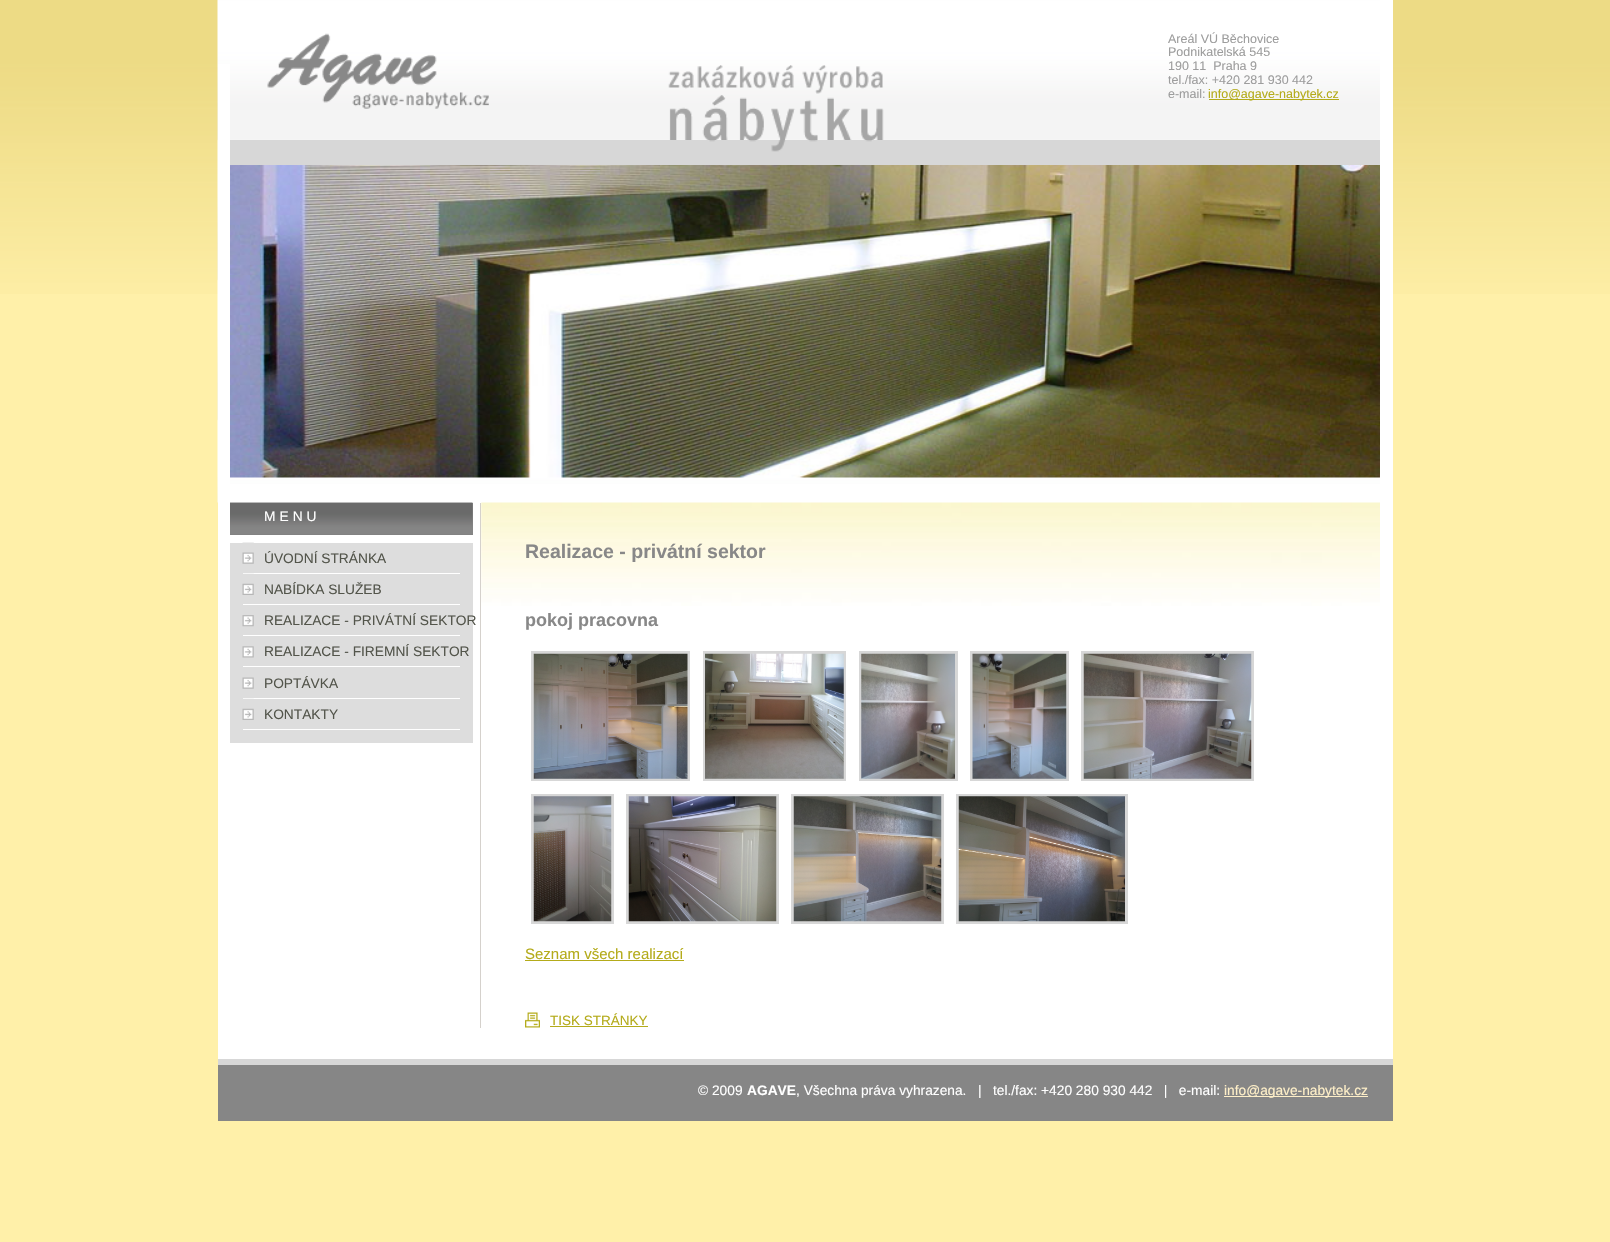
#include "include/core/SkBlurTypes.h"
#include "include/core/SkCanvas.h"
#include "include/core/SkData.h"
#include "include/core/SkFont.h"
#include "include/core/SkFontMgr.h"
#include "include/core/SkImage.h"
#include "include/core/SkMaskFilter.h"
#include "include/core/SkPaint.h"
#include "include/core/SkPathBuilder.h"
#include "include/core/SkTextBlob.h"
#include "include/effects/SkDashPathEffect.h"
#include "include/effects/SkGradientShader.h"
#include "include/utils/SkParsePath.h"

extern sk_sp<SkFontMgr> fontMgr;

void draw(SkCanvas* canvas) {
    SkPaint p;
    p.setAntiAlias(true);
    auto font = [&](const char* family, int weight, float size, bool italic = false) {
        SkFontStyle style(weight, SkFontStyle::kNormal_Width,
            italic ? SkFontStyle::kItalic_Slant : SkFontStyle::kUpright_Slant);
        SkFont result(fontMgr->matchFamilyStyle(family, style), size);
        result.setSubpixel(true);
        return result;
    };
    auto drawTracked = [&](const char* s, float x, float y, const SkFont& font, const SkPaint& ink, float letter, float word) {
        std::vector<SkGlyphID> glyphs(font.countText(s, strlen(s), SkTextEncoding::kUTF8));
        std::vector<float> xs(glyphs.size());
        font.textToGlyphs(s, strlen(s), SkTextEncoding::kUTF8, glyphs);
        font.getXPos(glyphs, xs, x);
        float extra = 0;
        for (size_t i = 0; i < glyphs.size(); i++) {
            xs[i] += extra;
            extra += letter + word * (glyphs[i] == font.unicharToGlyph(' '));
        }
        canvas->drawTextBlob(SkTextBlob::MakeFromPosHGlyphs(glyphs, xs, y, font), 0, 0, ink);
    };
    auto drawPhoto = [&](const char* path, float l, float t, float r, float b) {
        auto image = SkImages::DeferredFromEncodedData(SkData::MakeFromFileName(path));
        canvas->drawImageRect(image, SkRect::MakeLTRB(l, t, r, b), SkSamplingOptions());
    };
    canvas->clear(0xFFFFF0A9);
    drawPhoto("media/1.png", 0, 0, 1610, 294);
    drawPhoto("media/2.png", 217, 0, 1380, 503);
    p.setColor(0xFFFFFFFF);
    canvas->drawRect(SkRect::MakeLTRB(1380, 0, 1393, 503), p);
    canvas->drawRect(SkRect::MakeLTRB(218, 64, 230, 503), p);
    drawPhoto("media/3.png", 267, 33, 489, 109);
    drawPhoto("media/4.png", 668, 65, 884, 140);
    auto font1 = font("Liberation Sans", 400, 12.5f);
    p.setColor(0xFF9D9D9D);
    {
        const struct { const char* s; float x, y; } items[] = {
            {"Areál VÚ Běchovice", 1168, 43},
            {"Podnikatelská 545", 1168, 56},
            {"190 11  Praha 9", 1168, 70},
            {"tel./fax: +420 281 930 442", 1168, 84},
            {"e-mail:", 1168, 98},
        };
        for (auto [s, x, y] : items) {
            canvas->drawString(s, x, y, font1, p);
        }
    }
    p.setColor(0xFFB4AB1A);
    canvas->drawRect(SkRect::MakeLTRB(1209, 99, 1339, 100), p);
    canvas->drawString("info@agave-nabytek.cz", 1208, 98, font1, p);
    p.setColor(0xFFD7D7D7);
    canvas->drawRect(SkRect::MakeLTRB(230, 140, 1380, 165), p);
    drawPhoto("media/5.png", 709, 140, 872, 152);
    p.setColor(0xFFFFFFFF);
    canvas->drawRect(SkRect::MakeLTRB(230, 484, 1380, 503), p);
    drawPhoto("media/6.png", 230, 165, 1380, 478);
    canvas->drawRect(SkRect::MakeLTRB(218, 503, 1393, 1059), p);
    p.setColor(0xFF858585);
    canvas->drawRect(SkRect::MakeLTRB(472, 503, 473, 535), p);
    drawPhoto("media/7.png", 230, 502, 473, 535);
    auto font2 = font("Liberation Sans", 400, 13.75f);
    p.setColor(0xFFFFFFFF);
    drawTracked("MENU", 264, 521, font2, p, 4, 0);
    p.setColor(0xFFDDDDDD);
    canvas->drawRect(SkRect::MakeLTRB(230, 543, 473, 743), p);
    p.setColor(0xFFFFFFFF);
    canvas->drawRect(SkRect::MakeLTRB(243, 573, 460, 574), p);
    drawPhoto("media/8.png", 242, 542, 254, 564);
    p.setColor(0xFF53554B);
    canvas->drawString("ÚVODNÍ STRÁNKA", 264, 563, font2, p);
    p.setColor(0xFFFFFFFF);
    canvas->drawRect(SkRect::MakeLTRB(243, 604, 460, 605), p);
    drawPhoto("media/9.png", 242, 573, 254, 595);
    p.setColor(0xFF53554B);
    canvas->drawString("NABÍDKA SLUŽEB", 264, 594, font2, p);
    p.setColor(0xFFFFFFFF);
    canvas->drawRect(SkRect::MakeLTRB(243, 635, 460, 636), p);
    drawPhoto("media/10.png", 242, 615, 254, 627);
    p.setColor(0xFF53554B);
    canvas->drawString("REALIZACE - PRIVÁTNÍ SEKTOR", 264, 625, font2, p);
    p.setColor(0xFFFFFFFF);
    canvas->drawRect(SkRect::MakeLTRB(243, 666, 460, 667), p);
    drawPhoto("media/11.png", 242, 646, 254, 658);
    p.setColor(0xFF53554B);
    canvas->drawString("REALIZACE - FIREMNÍ SEKTOR", 264, 656, font2, p);
    p.setColor(0xFFFFFFFF);
    canvas->drawRect(SkRect::MakeLTRB(243, 698, 460, 699), p);
    drawPhoto("media/12.png", 242, 677, 254, 689);
    p.setColor(0xFF53554B);
    canvas->drawString("POPTÁVKA", 264, 688, font2, p);
    p.setColor(0xFFFFFFFF);
    canvas->drawRect(SkRect::MakeLTRB(243, 729, 460, 730), p);
    drawPhoto("media/13.png", 242, 698, 254, 720);
    p.setColor(0xFF53554B);
    canvas->drawString("KONTAKTY", 264, 719, font2, p);
    p.setColor(0xFFD5D1CC);
    canvas->drawRect(SkRect::MakeLTRB(480, 503, 481, 1028), p);
    drawPhoto("media/14.png", 481, 502, 1380, 606);
    auto font3 = font("Liberation Sans", 700, 19.5f);
    p.setColor(0xFF888888);
    canvas->drawString("Realizace - privátní sektor", 525, 558, font3, p);
    auto font4 = font("Liberation Sans", 700, 18);
    canvas->drawString("pokoj pracovna", 525, 626, font4, p);
    p.setStyle(SkPaint::kStroke_Style);
    p.setStrokeWidth(3);
    p.setColor(0xFFD7D7D7);
    canvas->drawRect(SkRect::MakeLTRB(532.5f, 652.5f, 688.5f, 779.5f), p);
    canvas->drawRect(SkRect::MakeLTRB(704.5f, 652.5f, 844.5f, 779.5f), p);
    canvas->drawRect(SkRect::MakeLTRB(860.5f, 652.5f, 956.5f, 779.5f), p);
    canvas->drawRect(SkRect::MakeLTRB(971.5f, 652.5f, 1067.5f, 779.5f), p);
    canvas->drawRect(SkRect::MakeLTRB(1082.5f, 652.5f, 1252.5f, 779.5f), p);
    drawPhoto("media/15.png", 533, 653, 688, 779);
    drawPhoto("media/16.png", 705, 653, 844, 779);
    drawPhoto("media/17.png", 861, 653, 955, 779);
    drawPhoto("media/18.png", 972, 653, 1067, 779);
    drawPhoto("media/19.png", 1083, 653, 1252, 779);
    canvas->drawRect(SkRect::MakeLTRB(532.5f, 795.5f, 612.5f, 922.5f), p);
    canvas->drawRect(SkRect::MakeLTRB(627.5f, 795.5f, 777.5f, 922.5f), p);
    canvas->drawRect(SkRect::MakeLTRB(792.5f, 795.5f, 942.5f, 922.5f), p);
    canvas->drawRect(SkRect::MakeLTRB(957.5f, 795.5f, 1126.5f, 922.5f), p);
    drawPhoto("media/20.png", 533, 796, 612, 922);
    drawPhoto("media/21.png", 628, 796, 777, 922);
    drawPhoto("media/22.png", 793, 796, 942, 922);
    drawPhoto("media/23.png", 958, 796, 1125, 922);
    auto font5 = font("Liberation Sans", 400, 15);
    p.setStyle(SkPaint::kFill_Style);
    p.setColor(0xFFB4AB1A);
    canvas->drawString("Seznam všech realizací", 525, 959, font5, p);
    canvas->drawRect(SkRect::MakeLTRB(525, 960, 684, 961), p);
    drawPhoto("media/24.png", 525, 1012, 540, 1028);
    auto font6 = font("Liberation Sans", 400, 13.5f);
    canvas->drawString("TISK STRÁNKY", 550, 1025, font6, p);
    {
        const struct { float l, t, r, b; SkColor color; } items[] = {
            {550, 1026, 648, 1027, 0xFFB4AB1A},
            {218, 1065, 1393, 1121, 0xFF868686},
            {218, 1059, 1393, 1065, 0xFFD7D7D7},
        };
        for (auto [l, t, r, b, color] : items) {
            p.setColor(color);
            canvas->drawRect(SkRect::MakeLTRB(l, t, r, b), p);
        }
    }
    p.setColor(0xFFFFFFFF);
    canvas->drawString("© 2009", 698, 1095, font2, p);
    auto font7 = font("Liberation Sans", 700, 13.75f);
    canvas->drawString("AGAVE", 747, 1095, font7, p);
    canvas->drawString(", Všechna práva vyhrazena.   |   tel./fax: +420 280 930 442   |   e-mail:", 796, 1095, font2, p);
    p.setColor(0xFFFEEFC8);
    canvas->drawRect(SkRect::MakeLTRB(1224, 1096, 1368, 1097), p);
    canvas->drawString("info@agave-nabytek.cz", 1224, 1095, font2, p);
}
